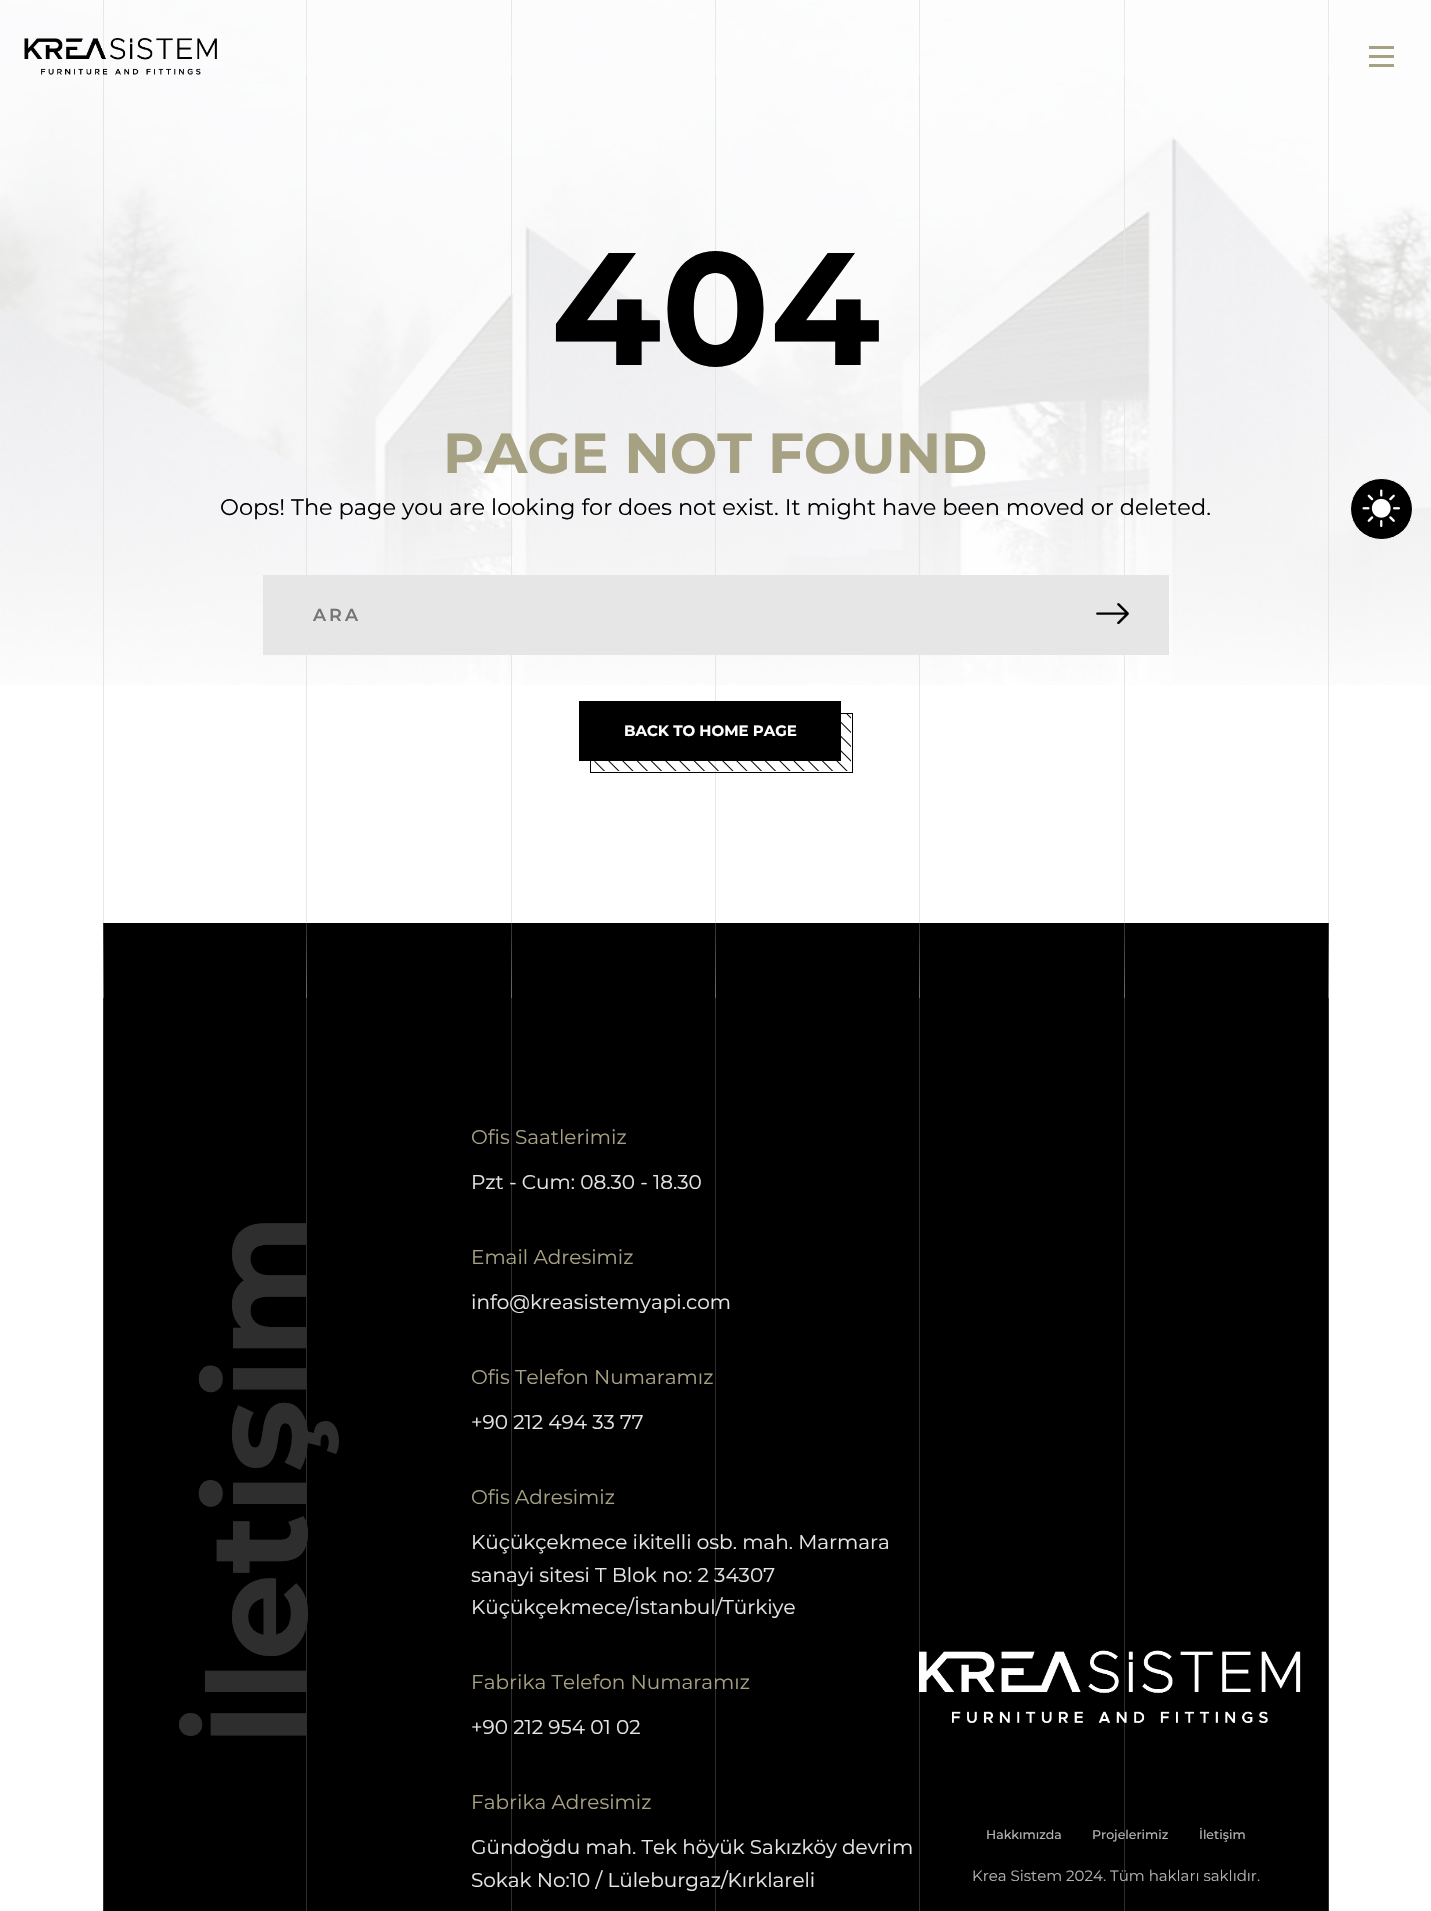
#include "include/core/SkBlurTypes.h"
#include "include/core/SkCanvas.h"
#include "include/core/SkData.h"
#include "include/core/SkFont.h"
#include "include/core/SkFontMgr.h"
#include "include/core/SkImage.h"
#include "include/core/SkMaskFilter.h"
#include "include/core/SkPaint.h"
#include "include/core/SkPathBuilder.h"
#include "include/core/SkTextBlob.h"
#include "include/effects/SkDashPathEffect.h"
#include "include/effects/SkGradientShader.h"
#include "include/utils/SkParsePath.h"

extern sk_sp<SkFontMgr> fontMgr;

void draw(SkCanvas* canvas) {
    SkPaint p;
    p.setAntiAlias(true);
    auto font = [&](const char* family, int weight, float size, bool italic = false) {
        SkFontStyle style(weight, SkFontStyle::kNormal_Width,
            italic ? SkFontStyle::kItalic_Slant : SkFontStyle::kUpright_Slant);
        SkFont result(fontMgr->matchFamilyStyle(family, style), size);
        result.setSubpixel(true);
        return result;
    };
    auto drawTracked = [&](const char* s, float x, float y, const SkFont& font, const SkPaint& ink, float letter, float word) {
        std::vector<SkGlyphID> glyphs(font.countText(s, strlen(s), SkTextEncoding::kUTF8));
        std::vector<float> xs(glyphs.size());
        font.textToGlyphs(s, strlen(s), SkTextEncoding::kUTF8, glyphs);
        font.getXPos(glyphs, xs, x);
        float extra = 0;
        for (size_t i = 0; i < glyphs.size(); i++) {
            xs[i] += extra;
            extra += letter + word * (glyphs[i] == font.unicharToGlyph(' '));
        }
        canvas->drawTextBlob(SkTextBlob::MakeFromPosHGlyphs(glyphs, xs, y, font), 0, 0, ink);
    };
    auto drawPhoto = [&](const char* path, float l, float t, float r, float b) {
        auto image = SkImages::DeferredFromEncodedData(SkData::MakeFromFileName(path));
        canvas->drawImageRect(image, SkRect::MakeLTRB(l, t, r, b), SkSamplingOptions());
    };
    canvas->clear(0xFFFFFFFF);
    drawPhoto("media/2.png", 0, 0, 1431, 685);
    {
        const SkColor colors[] = {0xFFEEEEEE, 0xFFE6E6E6};
        const float stops[] = {0, 1};
        const SkPoint ends[] = {{103, 75}, {103, 0}};
        p.setShader(SkGradientShader::MakeLinear(ends, colors, stops, 2, SkTileMode::kClamp));
        p.setAlpha(255);
    }
    canvas->drawRect(SkRect::MakeLTRB(103, 0, 104, 75), p);
    drawPhoto("media/1.png", 24, 37, 217, 75);
    p.setShader(nullptr);
    {
        const struct { float l, t, r, b; SkColor color; } items[] = {
            {1369, 46, 1394, 49, 0xFFA6A182},
            {1369, 55, 1394, 58, 0xFFA6A182},
            {1369, 64, 1394, 67, 0xFFA6A182},
            {103, 75, 104, 923, 0xFFE6E6E6},
            {306, 75, 307, 923, 0xFFE6E6E6},
        };
        for (auto [l, t, r, b, color] : items) {
            p.setColor(color);
            canvas->drawRect(SkRect::MakeLTRB(l, t, r, b), p);
        }
    }
    {
        const SkColor colors[] = {0xFFEEEEEE, 0xFFE6E6E6};
        const float stops[] = {0, 1};
        const SkPoint ends[] = {{307, 75}, {307, 0}};
        p.setShader(SkGradientShader::MakeLinear(ends, colors, stops, 2, SkTileMode::kClamp));
        p.setAlpha(255);
    }
    canvas->drawRect(SkRect::MakeLTRB(306, 0, 307, 75), p);
    p.setShader(nullptr);
    p.setColor(0xFFE6E6E6);
    canvas->drawRect(SkRect::MakeLTRB(511, 75, 512, 923), p);
    {
        const SkColor colors[] = {0xFFEEEEEE, 0xFFE6E6E6};
        const float stops[] = {0, 1};
        const SkPoint ends[] = {{512, 75}, {512, 0}};
        p.setShader(SkGradientShader::MakeLinear(ends, colors, stops, 2, SkTileMode::kClamp));
        p.setAlpha(255);
    }
    canvas->drawRect(SkRect::MakeLTRB(511, 0, 512, 75), p);
    p.setShader(nullptr);
    p.setColor(0xFFE6E6E6);
    canvas->drawRect(SkRect::MakeLTRB(715, 75, 716, 923), p);
    {
        const SkColor colors[] = {0xFFEEEEEE, 0xFFE6E6E6};
        const float stops[] = {0, 1};
        const SkPoint ends[] = {{716, 75}, {716, 0}};
        p.setShader(SkGradientShader::MakeLinear(ends, colors, stops, 2, SkTileMode::kClamp));
        p.setAlpha(255);
    }
    canvas->drawRect(SkRect::MakeLTRB(715, 0, 716, 75), p);
    p.setShader(nullptr);
    p.setColor(0xFFE6E6E6);
    canvas->drawRect(SkRect::MakeLTRB(919, 75, 920, 923), p);
    {
        const SkColor colors[] = {0xFFEEEEEE, 0xFFE6E6E6};
        const float stops[] = {0, 1};
        const SkPoint ends[] = {{919, 75}, {919, 0}};
        p.setShader(SkGradientShader::MakeLinear(ends, colors, stops, 2, SkTileMode::kClamp));
        p.setAlpha(255);
    }
    canvas->drawRect(SkRect::MakeLTRB(919, 0, 920, 75), p);
    p.setShader(nullptr);
    p.setColor(0xFFE6E6E6);
    canvas->drawRect(SkRect::MakeLTRB(1124, 75, 1125, 923), p);
    {
        const SkColor colors[] = {0xFFEEEEEE, 0xFFE6E6E6};
        const float stops[] = {0, 1};
        const SkPoint ends[] = {{1124, 75}, {1124, 0}};
        p.setShader(SkGradientShader::MakeLinear(ends, colors, stops, 2, SkTileMode::kClamp));
        p.setAlpha(255);
    }
    canvas->drawRect(SkRect::MakeLTRB(1124, 0, 1125, 75), p);
    p.setShader(nullptr);
    p.setColor(0xFFE6E6E6);
    canvas->drawRect(SkRect::MakeLTRB(1328, 75, 1329, 923), p);
    {
        const SkColor colors[] = {0xFFEEEEEE, 0xFFE6E6E6};
        const float stops[] = {0, 1};
        const SkPoint ends[] = {{1328, 75}, {1328, 0}};
        p.setShader(SkGradientShader::MakeLinear(ends, colors, stops, 2, SkTileMode::kClamp));
        p.setAlpha(255);
    }
    canvas->drawRect(SkRect::MakeLTRB(1328, 0, 1329, 75), p);
    auto font1 = font("Montserrat", 700, 160);
    p.setShader(nullptr);
    p.setColor(0xFF000000);
    canvas->drawString("404", 551, 365, font1, p);
    auto font2 = font("Montserrat", 700, 56.25f);
    p.setColor(0xFFA6A182);
    canvas->drawString("PAGE NOT FOUND", 443, 473, font2, p);
    auto font3 = font("Montserrat", 400, 22.5f);
    p.setColor(0xFF000000);
    canvas->drawString("Oops! The page you are looking for does not exist. It might have been moved or deleted.", 220, 515, font3, p);
    p.setColor(0xFFE6E6E6);
    canvas->drawRect(SkRect::MakeLTRB(263, 575, 1169, 655), p);
    auto font4 = font("Montserrat", 600, 17.5f);
    p.setColor(0xFF757575);
    drawTracked("ARA", 313, 621, font4, p, 3, 0);
    drawPhoto("media/3.png", 1096, 603, 1129, 625);
    p.setStyle(SkPaint::kStroke_Style);
    p.setStrokeWidth(1);
    p.setColor(0xFF000000);
    canvas->drawRect(SkRect::MakeLTRB(590.5f, 713.5f, 852.5f, 772.5f), p);
    drawPhoto("media/4.png", 594, 714, 851, 771);
    p.setStyle(SkPaint::kFill_Style);
    canvas->drawRect(SkRect::MakeLTRB(579, 701, 841, 761), p);
    auto font5 = font("Montserrat", 700, 15);
    p.setColor(0xFFFFFFFF);
    canvas->drawString("BACK TO HOME PAGE", 624, 736, font5, p);
    p.setColor(0xFF000000);
    canvas->drawRoundRect(SkRect::MakeLTRB(1350.5f, 478.5f, 1412.5f, 539.5f), 30.5f, 30.5f, p);
    p.setStyle(SkPaint::kStroke_Style);
    p.setColor(0xFFFFFFFF);
    canvas->drawRoundRect(SkRect::MakeLTRB(1350.5f, 478.5f, 1412.5f, 539.5f), 30.5f, 30.5f, p);
    drawPhoto("media/5.png", 1362, 489, 1400, 527);
    p.setStyle(SkPaint::kFill_Style);
    p.setColor(0xFF2E2E2E);
    canvas->drawRect(SkRect::MakeLTRB(103, 998, 104, 1911), p);
    {
        const SkColor colors[] = {0xFF6D6D6D, 0xFF2E2E2E};
        const float stops[] = {0, 1};
        const SkPoint ends[] = {{103, 998}, {103, 923}};
        p.setShader(SkGradientShader::MakeLinear(ends, colors, stops, 2, SkTileMode::kClamp));
        p.setAlpha(255);
    }
    canvas->drawRect(SkRect::MakeLTRB(103, 923, 104, 998), p);
    p.setShader(nullptr);
    p.setColor(0xFF000000);
    canvas->drawRect(SkRect::MakeLTRB(104, 923, 1328, 1911), p);
    p.setColor(0xFF2E2E2E);
    canvas->drawRect(SkRect::MakeLTRB(306, 998, 307, 1911), p);
    {
        const SkColor colors[] = {0xFF6D6D6D, 0xFF2E2E2E};
        const float stops[] = {0, 1};
        const SkPoint ends[] = {{307, 998}, {307, 923}};
        p.setShader(SkGradientShader::MakeLinear(ends, colors, stops, 2, SkTileMode::kClamp));
        p.setAlpha(255);
    }
    canvas->drawRect(SkRect::MakeLTRB(306, 923, 307, 998), p);
    p.setShader(nullptr);
    p.setColor(0xFF2E2E2E);
    canvas->drawRect(SkRect::MakeLTRB(511, 998, 512, 1911), p);
    {
        const SkColor colors[] = {0xFF6D6D6D, 0xFF2E2E2E};
        const float stops[] = {0, 1};
        const SkPoint ends[] = {{512, 998}, {512, 923}};
        p.setShader(SkGradientShader::MakeLinear(ends, colors, stops, 2, SkTileMode::kClamp));
        p.setAlpha(255);
    }
    canvas->drawRect(SkRect::MakeLTRB(511, 923, 512, 998), p);
    p.setShader(nullptr);
    p.setColor(0xFF2E2E2E);
    canvas->drawRect(SkRect::MakeLTRB(715, 998, 716, 1911), p);
    {
        const SkColor colors[] = {0xFF6D6D6D, 0xFF2E2E2E};
        const float stops[] = {0, 1};
        const SkPoint ends[] = {{716, 998}, {716, 923}};
        p.setShader(SkGradientShader::MakeLinear(ends, colors, stops, 2, SkTileMode::kClamp));
        p.setAlpha(255);
    }
    canvas->drawRect(SkRect::MakeLTRB(715, 923, 716, 998), p);
    p.setShader(nullptr);
    p.setColor(0xFF2E2E2E);
    canvas->drawRect(SkRect::MakeLTRB(919, 998, 920, 1911), p);
    {
        const SkColor colors[] = {0xFF6D6D6D, 0xFF2E2E2E};
        const float stops[] = {0, 1};
        const SkPoint ends[] = {{919, 998}, {919, 923}};
        p.setShader(SkGradientShader::MakeLinear(ends, colors, stops, 2, SkTileMode::kClamp));
        p.setAlpha(255);
    }
    canvas->drawRect(SkRect::MakeLTRB(919, 923, 920, 998), p);
    p.setShader(nullptr);
    p.setColor(0xFF2E2E2E);
    canvas->drawRect(SkRect::MakeLTRB(1124, 998, 1125, 1911), p);
    {
        const SkColor colors[] = {0xFF6D6D6D, 0xFF2E2E2E};
        const float stops[] = {0, 1};
        const SkPoint ends[] = {{1124, 998}, {1124, 923}};
        p.setShader(SkGradientShader::MakeLinear(ends, colors, stops, 2, SkTileMode::kClamp));
        p.setAlpha(255);
    }
    canvas->drawRect(SkRect::MakeLTRB(1124, 923, 1125, 998), p);
    p.setShader(nullptr);
    p.setColor(0xFF2E2E2E);
    canvas->drawRect(SkRect::MakeLTRB(1328, 998, 1329, 1911), p);
    {
        const SkColor colors[] = {0xFF6D6D6D, 0xFF2E2E2E};
        const float stops[] = {0, 1};
        const SkPoint ends[] = {{1328, 998}, {1328, 923}};
        p.setShader(SkGradientShader::MakeLinear(ends, colors, stops, 2, SkTileMode::kClamp));
        p.setAlpha(255);
    }
    canvas->drawRect(SkRect::MakeLTRB(1328, 923, 1329, 998), p);
    auto font6 = font("Montserrat", 700, 137.5f);
    p.setShader(nullptr);
    p.setColor(0xFF2E2E2E);
    canvas->save();
    canvas->rotate(-90, 307, 1747);
    canvas->drawString("İletişim", 307, 1747, font6, p);
    canvas->restore();
    auto font7 = font("Montserrat", 400, 20);
    p.setColor(0xFFA6A182);
    canvas->drawString("Ofis Saatlerimiz", 471, 1144, font7, p);
    p.setColor(0xFFE6E6E6);
    canvas->drawString("Pzt - Cum: 08.30 - 18.30", 471, 1189, font7, p);
    p.setColor(0xFFA6A182);
    canvas->drawString("Email Adresimiz", 471, 1264, font7, p);
    p.setColor(0xFFE6E6E6);
    canvas->drawString("info@kreasistemyapi.com", 471, 1309, font7, p);
    p.setColor(0xFFA6A182);
    canvas->drawString("Ofis Telefon Numaramız", 471, 1384, font7, p);
    p.setColor(0xFFE6E6E6);
    canvas->drawString("+90 212 494 33 77", 471, 1429, font7, p);
    p.setColor(0xFFA6A182);
    canvas->drawString("Ofis Adresimiz", 471, 1504, font7, p);
    p.setColor(0xFFE6E6E6);
    {
        const struct { const char* s; float x, y; } items[] = {
            {"Küçükçekmece ikitelli osb. mah. Marmara", 471, 1549},
            {"sanayi sitesi T Blok no: 2 34307", 471, 1582},
            {"Küçükçekmece/İstanbul/Türkiye", 471, 1614},
        };
        for (auto [s, x, y] : items) {
            canvas->drawString(s, x, y, font7, p);
        }
    }
    p.setColor(0xFFA6A182);
    canvas->drawString("Fabrika Telefon Numaramız", 471, 1689, font7, p);
    p.setColor(0xFFE6E6E6);
    canvas->drawString("+90 212 954 01 02", 471, 1734, font7, p);
    p.setColor(0xFFA6A182);
    canvas->drawString("Fabrika Adresimiz", 471, 1809, font7, p);
    p.setColor(0xFFE6E6E6);
    canvas->drawString("Gündoğdu mah. Tek höyük Sakızköy devrim", 471, 1854, font7, p);
    canvas->drawString("Sokak No:10 / Lüleburgaz/Kırklareli", 471, 1887, font7, p);
    drawPhoto("media/6.png", 919, 1650, 1301, 1723);
    auto font8 = font("Montserrat", 500, 12.5f);
    p.setColor(0xFFB2B2B2);
    {
        const struct { const char* s; float x, y; } items[] = {
            {"Hakkımızda", 986, 1839},
            {"Projelerimiz", 1092, 1839},
            {"İletişim", 1199, 1839},
        };
        for (auto [s, x, y] : items) {
            canvas->drawString(s, x, y, font8, p);
        }
    }
    auto font9 = font("Montserrat", 400, 15);
    canvas->drawString("Krea Sistem 2024. Tüm hakları saklıdır.", 972, 1881, font9, p);
}
